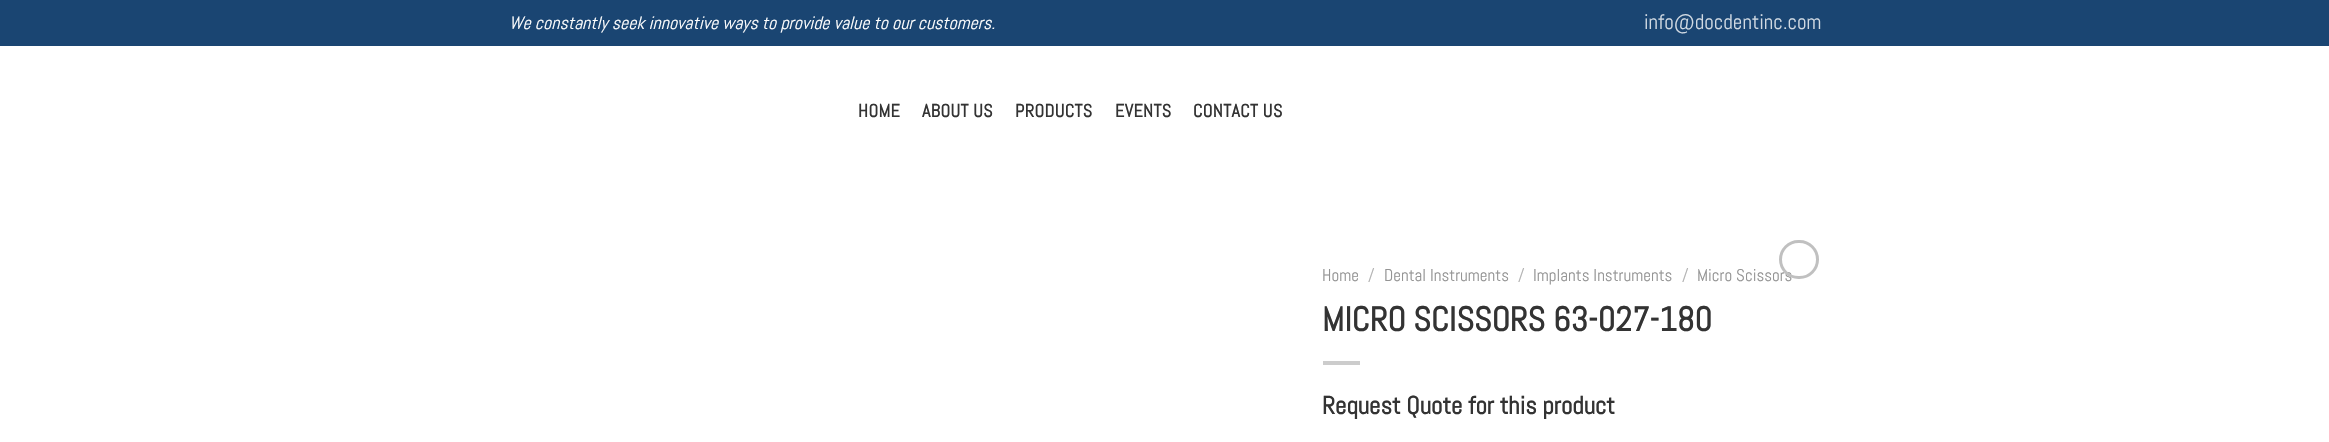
#include "include/core/SkBlurTypes.h"
#include "include/core/SkCanvas.h"
#include "include/core/SkData.h"
#include "include/core/SkFont.h"
#include "include/core/SkFontMgr.h"
#include "include/core/SkImage.h"
#include "include/core/SkMaskFilter.h"
#include "include/core/SkPaint.h"
#include "include/core/SkPathBuilder.h"
#include "include/core/SkTextBlob.h"
#include "include/effects/SkDashPathEffect.h"
#include "include/effects/SkGradientShader.h"
#include "include/utils/SkParsePath.h"

extern sk_sp<SkFontMgr> fontMgr;

void draw(SkCanvas* canvas) {
    SkPaint p;
    p.setAntiAlias(true);
    auto font = [&](const char* family, int weight, float size, bool italic = false) {
        SkFontStyle style(weight, SkFontStyle::kNormal_Width,
            italic ? SkFontStyle::kItalic_Slant : SkFontStyle::kUpright_Slant);
        SkFont result(fontMgr->matchFamilyStyle(family, style), size);
        result.setSubpixel(true);
        return result;
    };
    auto drawTracked = [&](const char* s, float x, float y, const SkFont& font, const SkPaint& ink, float letter, float word) {
        std::vector<SkGlyphID> glyphs(font.countText(s, strlen(s), SkTextEncoding::kUTF8));
        std::vector<float> xs(glyphs.size());
        font.textToGlyphs(s, strlen(s), SkTextEncoding::kUTF8, glyphs);
        font.getXPos(glyphs, xs, x);
        float extra = 0;
        for (size_t i = 0; i < glyphs.size(); i++) {
            xs[i] += extra;
            extra += letter + word * (glyphs[i] == font.unicharToGlyph(' '));
        }
        canvas->drawTextBlob(SkTextBlob::MakeFromPosHGlyphs(glyphs, xs, y, font), 0, 0, ink);
    };
    canvas->clear(0xFFFFFFFF);
    p.setColor(0xFF1A4572);
    canvas->drawRect(SkRect::MakeLTRB(0, 0, 2329, 46), p);
    auto font1 = font("Abel", 400, 18, true);
    p.setColor(0xFFFFFFFF);
    canvas->drawString("We constantly seek innovative ways to provide value to our customers.", 509, 29, font1, p);
    auto font2 = font("Abel", 400, 21);
    p.setColor(0xFFD1DAE3);
    canvas->drawString("info@docdentinc.com", 1644, 29, font2, p);
    auto font3 = font("Abel", 700, 18);
    p.setColor(0xFF333333);
    {
        const struct { const char* s; float x, y; } items[] = {
            {"HOME", 858, 117},
            {"ABOUT US", 922, 117},
            {"PRODUCTS", 1015, 117},
            {"EVENTS", 1115, 117},
            {"CONTACT US", 1193, 117},
        };
        for (auto [s, x, y] : items) {
            drawTracked(s, x, y, font3, p, 0.4f, 0);
        }
    }
    auto font4 = font("Abel", 400, 17);
    p.setColor(0xFF949494);
    canvas->drawString("Home", 1322, 281, font4, p);
    p.setColor(0xFFB2B2B2);
    canvas->drawString("/", 1368, 281, font4, p);
    p.setColor(0xFF949494);
    canvas->drawString("Dental Instruments", 1384, 281, font4, p);
    p.setColor(0xFFB2B2B2);
    canvas->drawString("/", 1518, 281, font4, p);
    p.setColor(0xFF949494);
    canvas->drawString("Implants Instruments", 1533, 281, font4, p);
    p.setColor(0xFFB2B2B2);
    canvas->drawString("/", 1682, 281, font4, p);
    p.setColor(0xFF949494);
    canvas->drawString("Micro Scissors", 1697, 281, font4, p);
    p.setStyle(SkPaint::kStroke_Style);
    p.setStrokeWidth(3);
    p.setColor(0xFFC0C0C0);
    canvas->drawRoundRect(SkRect::MakeLTRB(1780.5f, 241.5f, 1817.5f, 277.5f), 18, 18, p);
    auto font5 = font("Abel", 700, 34);
    p.setStyle(SkPaint::kFill_Style);
    p.setColor(0xFF333333);
    canvas->drawString("MICRO SCISSORS 63-027-180", 1322, 331, font5, p);
    p.setColor(0xFFCCCCCC);
    canvas->drawRect(SkRect::MakeLTRB(1323, 361, 1360, 365), p);
    auto font6 = font("Abel", 700, 25);
    p.setColor(0xFF333333);
    canvas->drawString("Request Quote for this product", 1322, 414, font6, p);
}
